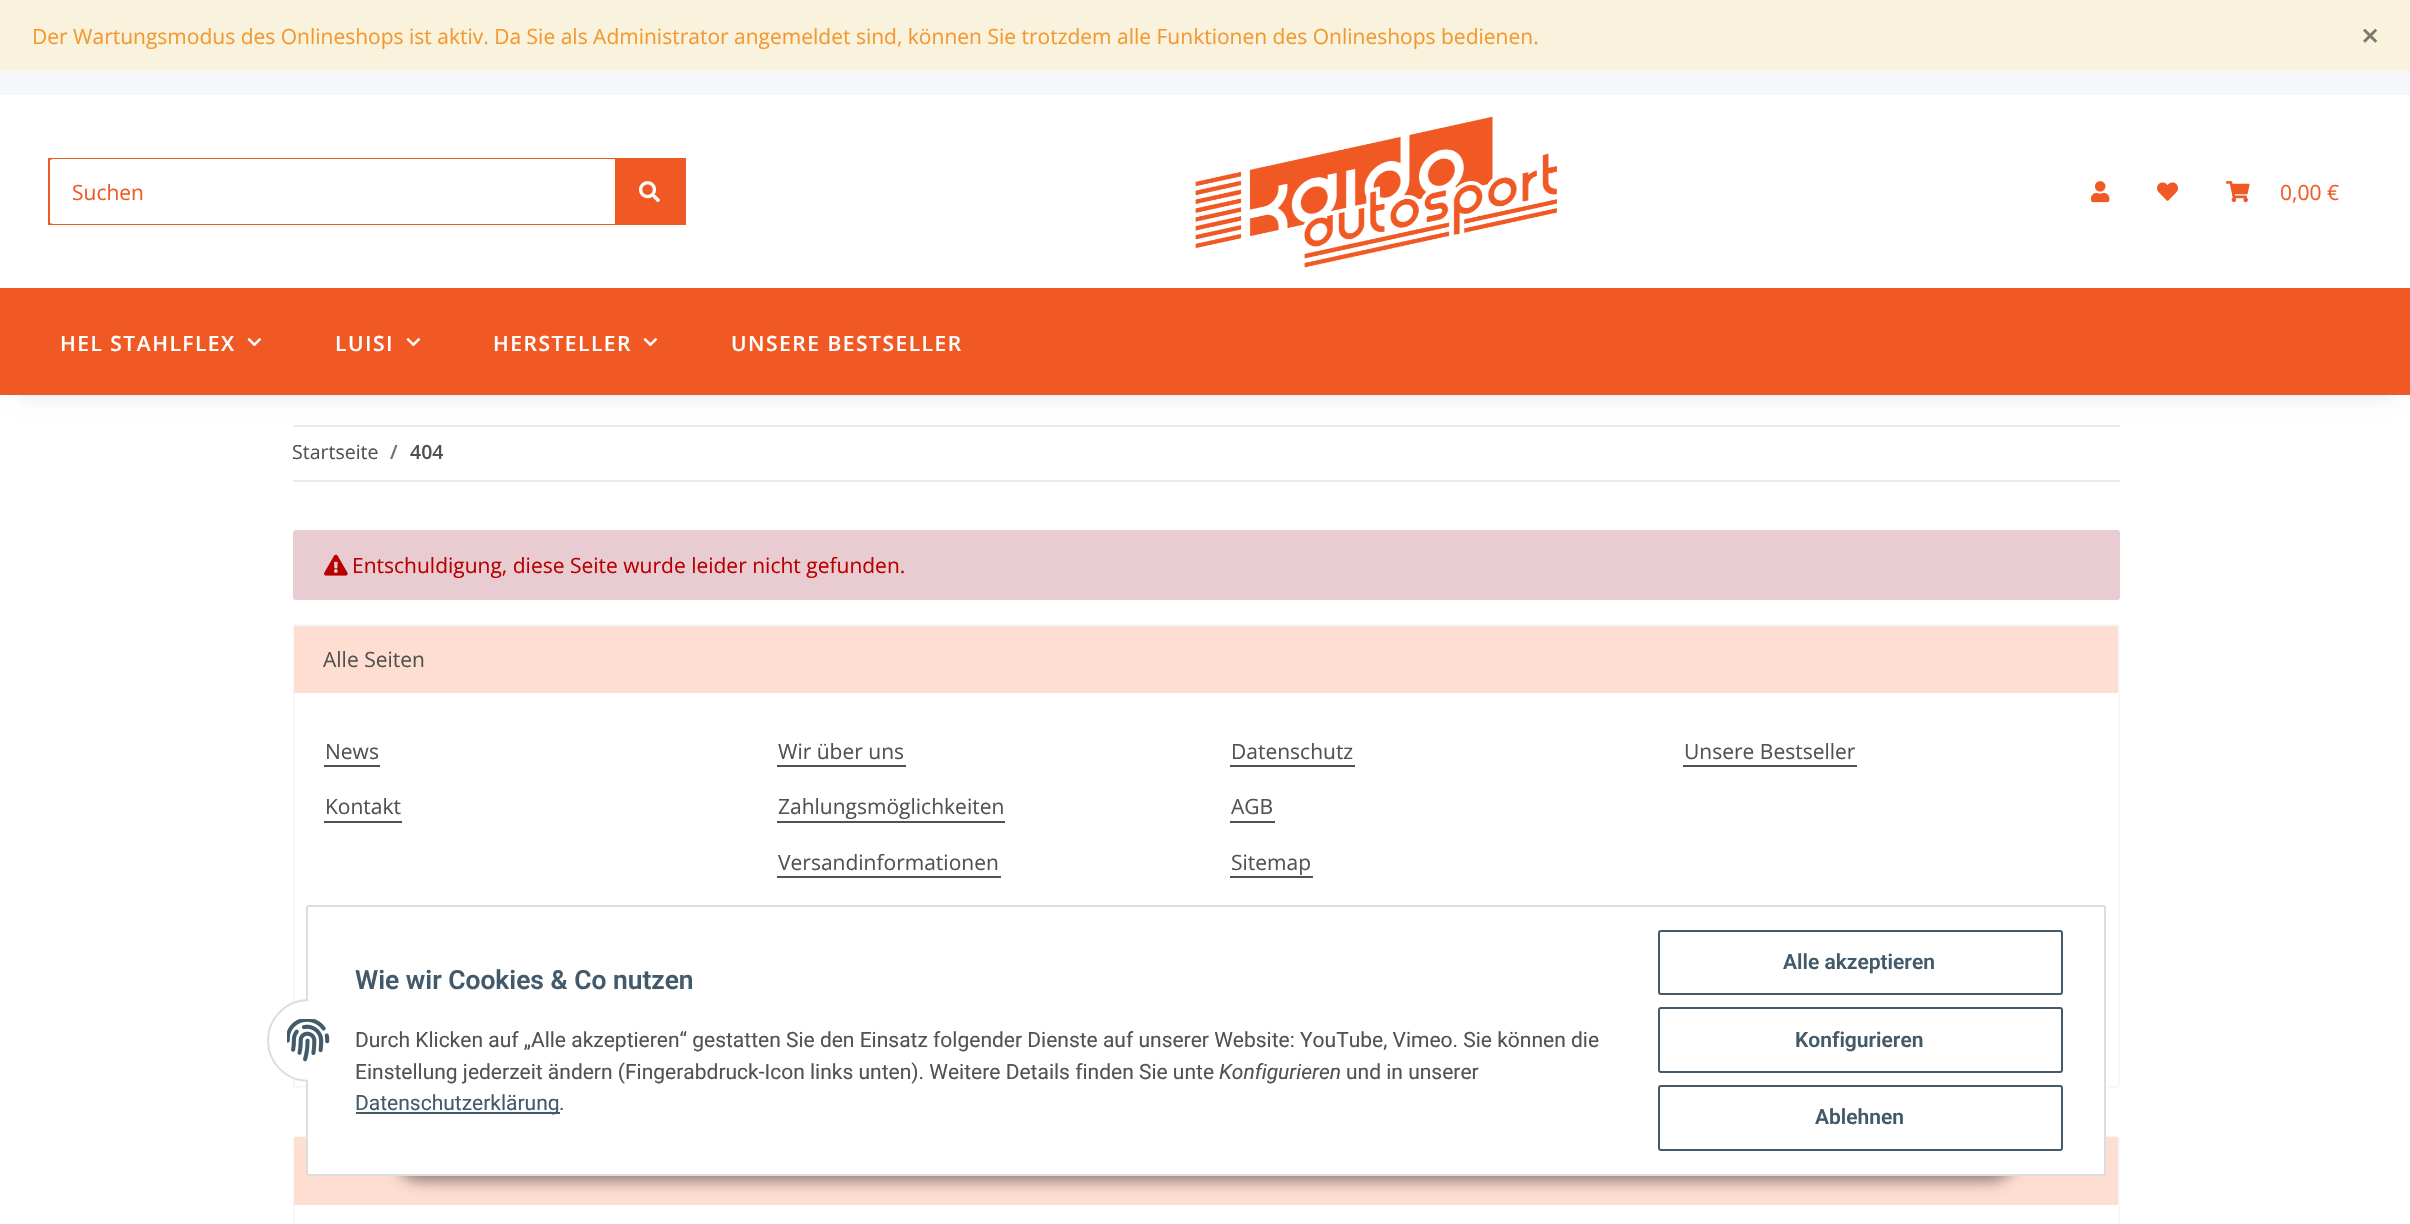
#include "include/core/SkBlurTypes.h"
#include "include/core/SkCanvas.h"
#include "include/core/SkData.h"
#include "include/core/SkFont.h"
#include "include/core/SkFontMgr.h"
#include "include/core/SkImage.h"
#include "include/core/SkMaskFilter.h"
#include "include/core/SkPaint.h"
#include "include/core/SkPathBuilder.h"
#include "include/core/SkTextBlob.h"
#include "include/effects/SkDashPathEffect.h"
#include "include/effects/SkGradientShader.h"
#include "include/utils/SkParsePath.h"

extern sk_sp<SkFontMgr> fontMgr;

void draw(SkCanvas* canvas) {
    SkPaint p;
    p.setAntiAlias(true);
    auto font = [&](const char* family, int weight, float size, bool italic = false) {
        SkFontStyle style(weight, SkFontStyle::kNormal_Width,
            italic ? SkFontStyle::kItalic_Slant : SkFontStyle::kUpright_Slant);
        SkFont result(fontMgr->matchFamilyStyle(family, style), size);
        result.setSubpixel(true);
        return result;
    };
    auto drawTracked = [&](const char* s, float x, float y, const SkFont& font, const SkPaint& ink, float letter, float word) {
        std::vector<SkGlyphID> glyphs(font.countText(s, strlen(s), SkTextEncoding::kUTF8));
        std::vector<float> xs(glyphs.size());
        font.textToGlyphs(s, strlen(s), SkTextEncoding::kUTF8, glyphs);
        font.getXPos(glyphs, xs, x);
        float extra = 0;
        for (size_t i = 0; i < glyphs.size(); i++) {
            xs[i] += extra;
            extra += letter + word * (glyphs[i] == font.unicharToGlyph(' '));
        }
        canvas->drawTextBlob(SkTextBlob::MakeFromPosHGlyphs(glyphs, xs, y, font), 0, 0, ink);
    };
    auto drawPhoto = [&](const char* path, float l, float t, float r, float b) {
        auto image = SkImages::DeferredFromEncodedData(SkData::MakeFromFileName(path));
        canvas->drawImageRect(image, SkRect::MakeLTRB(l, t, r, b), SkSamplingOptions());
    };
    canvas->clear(0xFFF5F7FA);
    p.setColor(0xFFF9F2DC);
    canvas->drawRoundRect(SkRect::MakeLTRB(1, 1, 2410, 70), 2, 2, p);
    p.setStyle(SkPaint::kStroke_Style);
    p.setStrokeWidth(2);
    canvas->drawRoundRect(SkRect::MakeLTRB(1, 1, 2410, 70), 2, 2, p);
    auto font1 = font("Open Sans", 400, 21);
    p.setStyle(SkPaint::kFill_Style);
    p.setColor(0xFFF39932);
    canvas->drawString("Der Wartungsmodus des Onlineshops ist aktiv. Da Sie als Administrator angemeldet sind, können Sie trotzdem alle Funktionen des Onlineshops bedienen.", 32, 44, font1, p);
    auto font2 = font("Open Sans", 600, 32);
    p.setColor(0xFF7D796E);
    canvas->drawString("×", 2361, 47, font2, p);
    p.setColor(0xFFFFFFFF);
    canvas->drawRect(SkRect::MakeLTRB(0, 395, 2410, 1224), p);
    p.setColor(0x0F000000);
    p.setMaskFilter(SkMaskFilter::MakeBlur(kNormal_SkBlurStyle, 7));
    canvas->drawRect(SkRect::MakeLTRB(18, 137, 2393, 401), p);
    p.setMaskFilter(nullptr);
    p.setColor(0xFFF05923);
    canvas->drawRect(SkRect::MakeLTRB(0, 288, 2410, 395), p);
    p.setColor(0xFFFFFFFF);
    canvas->drawRect(SkRect::MakeLTRB(0, 95, 2410, 288), p);
    p.setStyle(SkPaint::kStroke_Style);
    p.setColor(0xFFF05923);
    canvas->drawRect(SkRect::MakeLTRB(49, 159, 685, 224), p);
    p.setStyle(SkPaint::kFill_Style);
    p.setColor(0xFFFFFFFF);
    canvas->drawRoundRect(SkRect::MakeLTRB(50, 159, 617, 224), 3, 3, p);
    p.setColor(0xFFF05923);
    canvas->drawString("Suchen", 72, 200, font1, p);
    canvas->drawRect(SkRect::MakeLTRB(615, 159, 684, 224), p);
    drawPhoto("media/1.png", 639, 181, 660, 203);
    drawPhoto("media/2.png", 1195, 116, 1557, 268);
    drawPhoto("media/3.png", 2091, 181, 2110, 203);
    drawPhoto("media/4.png", 2157, 182, 2178, 201);
    drawPhoto("media/5.png", 2226, 181, 2250, 203);
    canvas->drawString("0,00 €", 2280, 200, font1, p);
    auto font3 = font("Open Sans", 600, 21);
    p.setColor(0xFFFFFFFF);
    drawTracked("HEL STAHLFLEX", 60, 351, font3, p, 1.5f, 0);
    drawPhoto("media/6.png", 247, 338, 262, 347);
    drawTracked("LUISI", 335, 351, font3, p, 1.5f, 0);
    drawPhoto("media/6.png", 406, 338, 421, 347);
    drawTracked("HERSTELLER", 493, 351, font3, p, 1.5f, 0);
    drawPhoto("media/6.png", 643, 338, 658, 347);
    drawTracked("UNSERE BESTSELLER", 731, 351, font3, p, 1.5f, 0);
    p.setColor(0xFFEBEBEB);
    canvas->drawRect(SkRect::MakeLTRB(293, 425, 2120, 427), p);
    canvas->drawRect(SkRect::MakeLTRB(293, 480, 2120, 482), p);
    auto font4 = font("Open Sans", 400, 19.5f);
    p.setColor(0xFF525252);
    canvas->drawString("Startseite", 292, 459, font4, p);
    auto font5 = font("Open Sans", 600, 19.5f);
    p.setColor(0xFF707070);
    canvas->drawString("/", 390, 459, font5, p);
    p.setColor(0xFF525252);
    canvas->drawString("404", 410, 459, font5, p);
    p.setColor(0xFFE8CCD2);
    canvas->drawRoundRect(SkRect::MakeLTRB(294, 531, 2119, 599), 2, 2, p);
    p.setStyle(SkPaint::kStroke_Style);
    canvas->drawRoundRect(SkRect::MakeLTRB(294, 531, 2119, 599), 2, 2, p);
    drawPhoto("media/7.png", 324, 554, 348, 576);
    p.setStyle(SkPaint::kFill_Style);
    p.setColor(0xFFB90000);
    canvas->drawString("Entschuldigung, diese Seite wurde leider nicht gefunden.", 352, 573, font1, p);
    p.setStyle(SkPaint::kStroke_Style);
    p.setColor(0xFFF5F7FA);
    canvas->drawRoundRect(SkRect::MakeLTRB(294, 625, 2119, 1087), 2, 2, p);
    p.setStyle(SkPaint::kFill_Style);
    p.setColor(0xFFFFDED2);
    canvas->drawPath(SkPathBuilder().moveTo(295.5f, 626).lineTo(2116.5f, 626).cubicTo(2117.5f, 626, 2118, 626.5f, 2118, 627.5f).lineTo(2118, 693).lineTo(294, 693).lineTo(294, 627.5f).cubicTo(294, 626.5f, 294.5f, 626, 295.5f, 626).close().detach(), p);
    p.setColor(0xFF525252);
    canvas->drawString("Alle Seiten", 323, 667, font1, p);
    canvas->drawString("News", 325, 759, font1, p);
    canvas->drawRect(SkRect::MakeLTRB(324, 765, 380, 767), p);
    canvas->drawString("Kontakt", 325, 814, font1, p);
    canvas->drawRect(SkRect::MakeLTRB(324, 821, 402, 823), p);
    canvas->drawString("Wir über uns", 778, 759, font1, p);
    canvas->drawRect(SkRect::MakeLTRB(777, 765, 906, 767), p);
    canvas->drawString("Zahlungsmöglichkeiten", 778, 814, font1, p);
    canvas->drawRect(SkRect::MakeLTRB(777, 821, 1005, 823), p);
    canvas->drawString("Versandinformationen", 778, 870, font1, p);
    canvas->drawRect(SkRect::MakeLTRB(777, 876, 1001, 878), p);
    canvas->drawString("Datenschutz", 1231, 759, font1, p);
    canvas->drawRect(SkRect::MakeLTRB(1230, 765, 1355, 767), p);
    canvas->drawString("AGB", 1231, 814, font1, p);
    canvas->drawRect(SkRect::MakeLTRB(1230, 821, 1275, 823), p);
    canvas->drawString("Sitemap", 1231, 870, font1, p);
    canvas->drawRect(SkRect::MakeLTRB(1230, 876, 1313, 878), p);
    canvas->drawString("Unsere Bestseller", 1684, 759, font1, p);
    canvas->drawRect(SkRect::MakeLTRB(1683, 765, 1857, 767), p);
    p.setStyle(SkPaint::kStroke_Style);
    p.setColor(0xFFF5F7FA);
    canvas->drawRoundRect(SkRect::MakeLTRB(294, 1137, 2119, 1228), 2, 2, p);
    p.setStyle(SkPaint::kFill_Style);
    p.setColor(0xFFFFDED2);
    canvas->drawPath(SkPathBuilder().moveTo(295.5f, 1137).lineTo(2116.5f, 1137).cubicTo(2117.5f, 1137, 2118, 1137.5f, 2118, 1138.5f).lineTo(2118, 1205).lineTo(294, 1205).lineTo(294, 1138.5f).cubicTo(294, 1137.5f, 294.5f, 1137, 295.5f, 1137).close().detach(), p);
    p.setColor(0x73000000);
    p.setMaskFilter(SkMaskFilter::MakeBlur(kNormal_SkBlurStyle, 7.5f));
    canvas->drawRoundRect(SkRect::MakeLTRB(396, 1133, 2015, 1181), 24, 24, p);
    p.setMaskFilter(nullptr);
    p.setColor(0xFFFFFFFF);
    canvas->drawRoundRect(SkRect::MakeLTRB(307, 906, 2105, 1175), 2, 2, p);
    p.setStyle(SkPaint::kStroke_Style);
    p.setColor(0xFFDDDDDD);
    canvas->drawRoundRect(SkRect::MakeLTRB(307, 906, 2105, 1175), 2, 2, p);
    p.setStyle(SkPaint::kFill_Style);
    p.setColor(0xFFFFFFFF);
    canvas->drawCircle(308.5f, 1040.5f, 40.5f, p);
    p.setStyle(SkPaint::kStroke_Style);
    p.setColor(0xFFDDDDDD);
    canvas->drawCircle(308.5f, 1040.5f, 40.5f, p);
    p.setStyle(SkPaint::kFill_Style);
    p.setColor(0xFFFFFFFF);
    canvas->drawRect(SkRect::MakeLTRB(308, 999, 350, 1082), p);
    drawPhoto("media/8.png", 287, 1019, 330, 1062);
    auto font6 = font("Roboto", 600, 26.4f);
    p.setColor(0xFF435A6B);
    canvas->drawString("Wie wir Cookies & Co nutzen", 355, 989, font6, p);
    auto font7 = font("Roboto", 400, 21);
    p.setColor(0xFF525252);
    canvas->drawString("Durch Klicken auf „Alle akzeptieren“ gestatten Sie den Einsatz folgender Dienste auf unserer Website: YouTube, Vimeo. Sie können die", 355, 1047, font7, p);
    canvas->drawString("Einstellung jederzeit ändern (Fingerabdruck-Icon links unten). Weitere Details finden Sie unte", 355, 1079, font7, p);
    auto font8 = font("Roboto", 400, 21, true);
    canvas->drawString("Konfigurieren", 1219, 1079, font8, p);
    canvas->drawString("und in unserer", 1346, 1079, font7, p);
    p.setColor(0xFF435A6B);
    canvas->drawRect(SkRect::MakeLTRB(356, 1112, 560, 1114), p);
    canvas->drawString("Datenschutzerklärung", 355, 1110, font7, p);
    p.setColor(0xFF525252);
    canvas->drawString(".", 559, 1110, font7, p);
    p.setStyle(SkPaint::kStroke_Style);
    p.setColor(0xFF435A6B);
    canvas->drawRoundRect(SkRect::MakeLTRB(1659, 931, 2062, 994), 2, 2, p);
    auto font9 = font("Roboto", 600, 21);
    p.setStyle(SkPaint::kFill_Style);
    canvas->drawString("Alle akzeptieren", 1783, 969, font9, p);
    p.setStyle(SkPaint::kStroke_Style);
    canvas->drawRoundRect(SkRect::MakeLTRB(1659, 1008, 2062, 1072), 2, 2, p);
    p.setStyle(SkPaint::kFill_Style);
    canvas->drawString("Konfigurieren", 1795, 1047, font9, p);
    p.setStyle(SkPaint::kStroke_Style);
    canvas->drawRoundRect(SkRect::MakeLTRB(1659, 1086, 2062, 1150), 2, 2, p);
    p.setStyle(SkPaint::kFill_Style);
    canvas->drawString("Ablehnen", 1815, 1124, font9, p);
}
